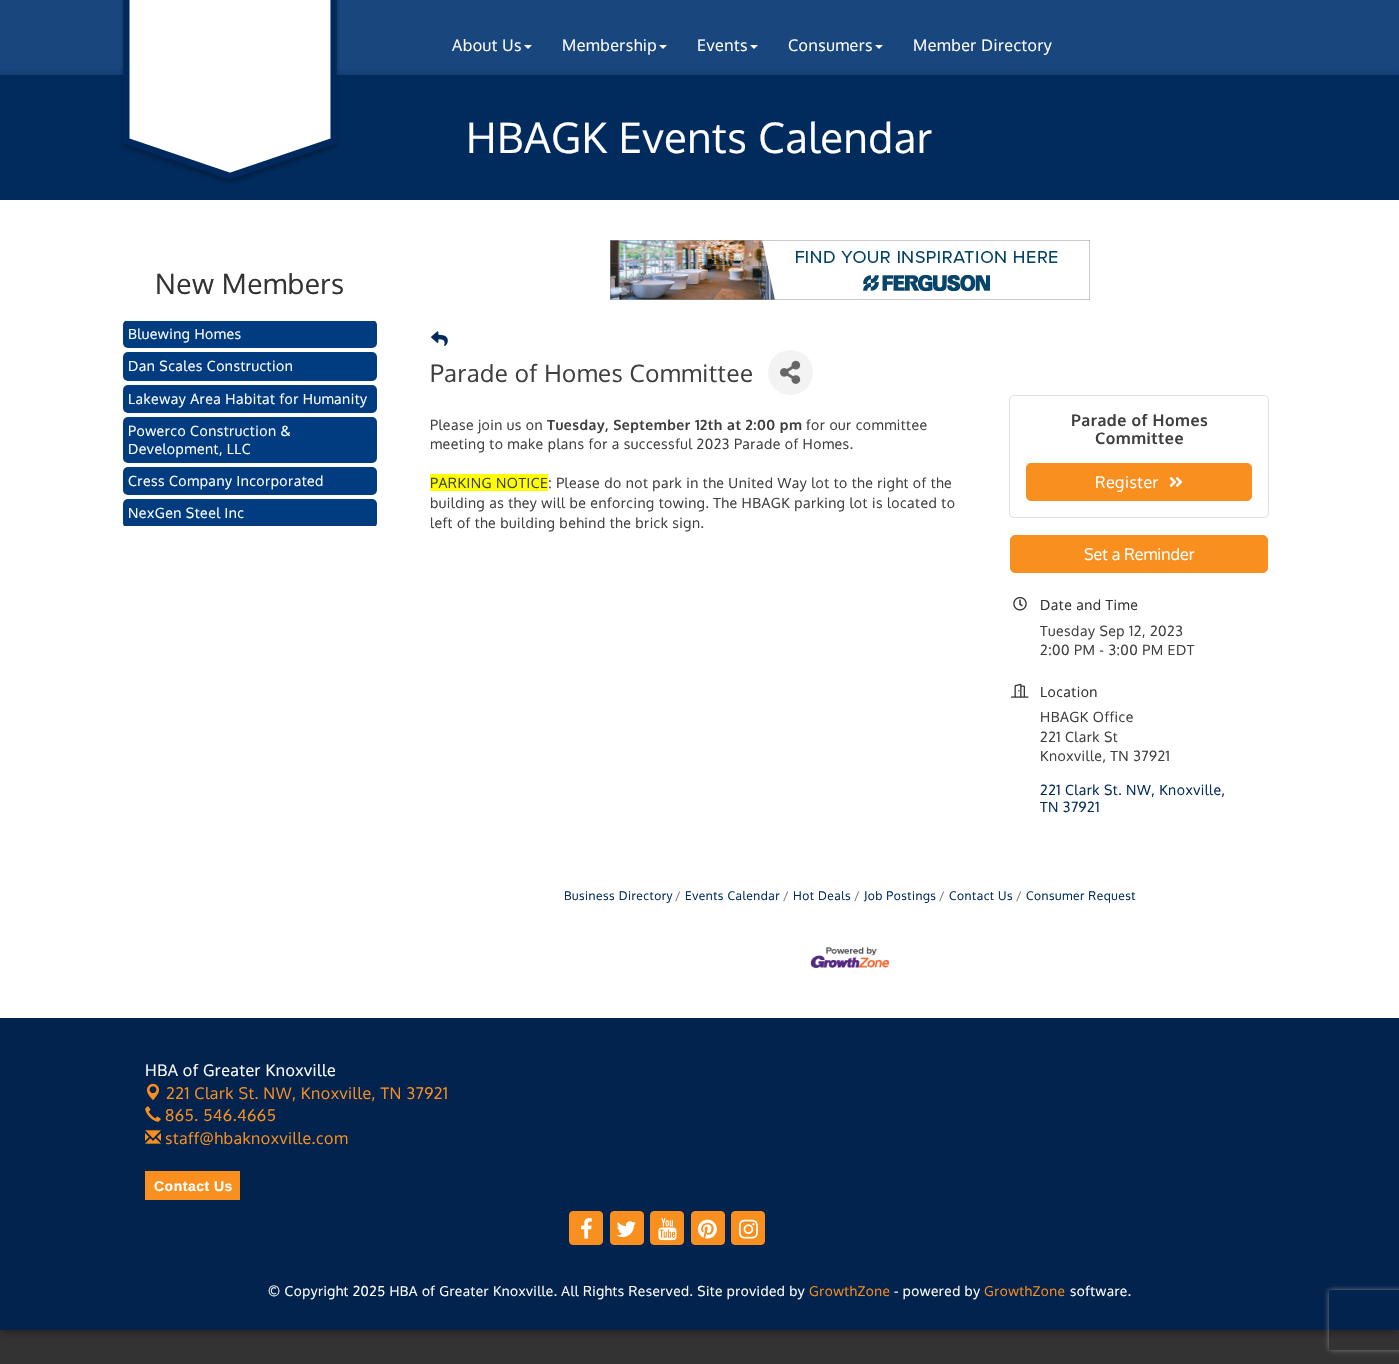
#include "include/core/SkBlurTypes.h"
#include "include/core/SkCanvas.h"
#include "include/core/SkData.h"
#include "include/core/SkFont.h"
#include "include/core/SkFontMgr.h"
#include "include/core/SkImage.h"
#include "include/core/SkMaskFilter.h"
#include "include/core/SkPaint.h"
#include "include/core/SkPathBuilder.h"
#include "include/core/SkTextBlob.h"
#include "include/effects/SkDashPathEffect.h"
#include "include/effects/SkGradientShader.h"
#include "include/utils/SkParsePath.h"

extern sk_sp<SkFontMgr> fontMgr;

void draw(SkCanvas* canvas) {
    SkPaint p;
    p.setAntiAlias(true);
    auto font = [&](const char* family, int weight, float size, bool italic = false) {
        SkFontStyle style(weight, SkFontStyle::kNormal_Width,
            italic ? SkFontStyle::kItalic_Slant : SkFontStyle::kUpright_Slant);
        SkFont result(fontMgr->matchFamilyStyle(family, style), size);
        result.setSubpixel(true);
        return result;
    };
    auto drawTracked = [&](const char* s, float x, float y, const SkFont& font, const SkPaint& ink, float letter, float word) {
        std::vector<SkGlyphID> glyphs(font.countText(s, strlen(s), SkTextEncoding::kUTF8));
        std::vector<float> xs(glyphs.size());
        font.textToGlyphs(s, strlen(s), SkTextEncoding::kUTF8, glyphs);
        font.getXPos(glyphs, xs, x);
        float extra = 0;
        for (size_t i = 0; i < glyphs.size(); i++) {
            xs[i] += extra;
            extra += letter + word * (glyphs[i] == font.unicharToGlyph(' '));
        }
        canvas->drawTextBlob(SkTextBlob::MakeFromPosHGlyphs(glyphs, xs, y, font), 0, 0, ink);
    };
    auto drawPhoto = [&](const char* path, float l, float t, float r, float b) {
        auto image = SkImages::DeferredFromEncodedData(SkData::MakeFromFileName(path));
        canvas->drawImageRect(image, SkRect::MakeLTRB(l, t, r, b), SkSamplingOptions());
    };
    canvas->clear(0xFF333333);
    p.setColor(0xFF73B0FF);
    canvas->drawRect(SkRect::MakeLTRB(0, 0, 1399, 75), p);
    canvas->save();
    canvas->clipRect(SkRect::MakeLTRB(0, 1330, 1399, 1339));
    p.setColor(0x80000000);
    p.setMaskFilter(SkMaskFilter::MakeBlur(kNormal_SkBlurStyle, 5));
    canvas->drawRect(SkRect::MakeLTRB(0, 0, 1399, 1330), p);
    p.setMaskFilter(nullptr);
    canvas->restore();
    p.setColor(0x4D000000);
    p.setMaskFilter(SkMaskFilter::MakeBlur(kNormal_SkBlurStyle, 3));
    canvas->drawRect(SkRect::MakeLTRB(0, 73, 1399, 198), p);
    p.setMaskFilter(nullptr);
    p.setColor(0xCC012B5D);
    canvas->drawRect(SkRect::MakeLTRB(0, 0, 1399, 75), p);
    p.setColor(0xFF012B5D);
    canvas->drawRect(SkRect::MakeLTRB(0, 75, 1399, 200), p);
    drawPhoto("media/1.png", 120, 0, 340, 185);
    auto font1 = font("Oxygen", 400, 16);
    p.setColor(0xFFFFFFFF);
    drawTracked("About Us", 452, 51, font1, p, 0.5f, 0);
    canvas->drawPath(SkPathBuilder().moveTo(524, 45).lineTo(532, 45).lineTo(528, 49).close().detach(), p);
    drawTracked("Membership", 562, 51, font1, p, 0.5f, 0);
    canvas->drawPath(SkPathBuilder().moveTo(659, 45).lineTo(667, 45).lineTo(663, 49).close().detach(), p);
    drawTracked("Events", 697, 51, font1, p, 0.5f, 0);
    canvas->drawPath(SkPathBuilder().moveTo(750, 45).lineTo(758, 45).lineTo(754, 49).close().detach(), p);
    drawTracked("Consumers", 788, 51, font1, p, 0.5f, 0);
    canvas->drawPath(SkPathBuilder().moveTo(875, 45).lineTo(883, 45).lineTo(879, 49).close().detach(), p);
    drawTracked("Member Directory", 913, 51, font1, p, 0.5f, 0);
    auto font2 = font("Oxygen", 400, 42);
    drawTracked("HBAGK Events Calendar", 466, 153, font2, p, 0.5f, 0);
    canvas->drawRect(SkRect::MakeLTRB(0, 200, 1399, 1018), p);
    auto font3 = font("Oxygen", 400, 28);
    p.setColor(0xFF333333);
    drawTracked("New Members", 155, 294, font3, p, 0.5f, 0);
    canvas->save();
    canvas->clipRect(SkRect::MakeLTRB(123, 321, 377, 526));
    p.setColor(0xFF013B80);
    canvas->drawRoundRect(SkRect::MakeLTRB(123, 320, 377, 348), 5, 5, p);
    canvas->restore();
    auto font4 = font("Oxygen", 400, 14);
    p.setColor(0xFFFFFFFF);
    drawTracked("Bluewing Homes", 128, 339, font4, p, 0.5f, 0);
    p.setColor(0xFF013B80);
    canvas->drawRoundRect(SkRect::MakeLTRB(123, 352, 377, 381), 5, 5, p);
    p.setColor(0xFFFFFFFF);
    drawTracked("Dan Scales Construction", 128, 371, font4, p, 0.5f, 0);
    p.setColor(0xFF013B80);
    canvas->drawRoundRect(SkRect::MakeLTRB(123, 385, 377, 413), 5, 5, p);
    p.setColor(0xFFFFFFFF);
    drawTracked("Lakeway Area Habitat for Humanity", 128, 404, font4, p, 0.5f, 0);
    p.setColor(0xFF013B80);
    canvas->drawRoundRect(SkRect::MakeLTRB(123, 417, 377, 463), 5, 5, p);
    p.setColor(0xFFFFFFFF);
    drawTracked("Powerco Construction &", 128, 436, font4, p, 0.5f, 0);
    drawTracked("Development, LLC", 128, 454, font4, p, 0.5f, 0);
    p.setColor(0xFF013B80);
    canvas->drawRoundRect(SkRect::MakeLTRB(123, 467, 377, 495), 5, 5, p);
    p.setColor(0xFFFFFFFF);
    drawTracked("Cress Company Incorporated", 128, 486, font4, p, 0.5f, 0);
    canvas->save();
    canvas->clipRect(SkRect::MakeLTRB(123, 321, 377, 526));
    p.setColor(0xFF013B80);
    canvas->drawRoundRect(SkRect::MakeLTRB(123, 499, 377, 528), 5, 5, p);
    canvas->restore();
    p.setColor(0xFFFFFFFF);
    drawTracked("NexGen Steel Inc", 128, 518, font4, p, 0.5f, 0);
    drawPhoto("media/2.png", 610, 240, 1090, 300);
    drawPhoto("media/3.png", 431, 331, 448, 346);
    auto font5 = font("Oxygen", 400, 24);
    p.setColor(0xFF3F3F3F);
    drawTracked("Parade of Homes Committee", 430, 382, font5, p, 0.5f, 0);
    p.setColor(0xFFF3F3F3);
    canvas->drawCircle(790.5f, 372.5f, 22.5f, p);
    drawPhoto("media/4.png", 780, 360, 801, 384);
    p.setColor(0xFF3F3F3F);
    drawTracked("Please join us on", 430, 430, font4, p, 0.5f, 0);
    auto font6 = font("Oxygen", 700, 14);
    drawTracked("Tuesday, September 12th at 2:00 pm", 547, 430, font6, p, 0.5f, 0);
    drawTracked("for our committee", 806, 430, font4, p, 0.5f, 0);
    drawTracked("meeting to make plans for a successful 2023 Parade of Homes.", 430, 449, font4, p, 0.5f, 0);
    p.setColor(0xFFFFFF00);
    canvas->drawRect(SkRect::MakeLTRB(430, 474, 548, 491), p);
    p.setColor(0xFF3F3F3F);
    {
        const struct { const char* s; float x, y; } items[] = {
            {"PARKING NOTICE: Please do not park in the United Way lot to the right of the", 430, 488},
            {"building as they will be enforcing towing. The HBAGK parking lot is located to", 430, 508},
            {"left of the building behind the brick sign.", 430, 528},
        };
        for (auto [s, x, y] : items) {
            drawTracked(s, x, y, font4, p, 0.5f, 0);
        }
    }
    p.setStyle(SkPaint::kStroke_Style);
    p.setStrokeWidth(1);
    p.setColor(0xFFDFDFDF);
    canvas->drawRoundRect(SkRect::MakeLTRB(1009.5f, 395.5f, 1268.5f, 517.5f), 4.5f, 4.5f, p);
    auto font7 = font("Oxygen", 700, 16);
    p.setStyle(SkPaint::kFill_Style);
    p.setColor(0xFF3F3F3F);
    drawTracked("Parade of Homes", 1071, 426, font7, p, 0.5f, 0);
    drawTracked("Committee", 1095, 444, font7, p, 0.5f, 0);
    p.setColor(0xFFEFEFEF);
    canvas->drawPath(SkPathBuilder().moveTo(1026, 463).lineTo(1252, 463).lineTo(1252, 497).cubicTo(1252, 499, 1250, 501, 1248, 501).lineTo(1030, 501).cubicTo(1028, 501, 1026, 499, 1026, 497).close().detach(), p);
    p.setColor(0xFFF98F1F);
    canvas->drawRoundRect(SkRect::MakeLTRB(1026.5f, 463.5f, 1251.5f, 500.5f), 4.5f, 4.5f, p);
    p.setStyle(SkPaint::kStroke_Style);
    canvas->drawRoundRect(SkRect::MakeLTRB(1026.5f, 463.5f, 1251.5f, 500.5f), 4.5f, 4.5f, p);
    p.setStyle(SkPaint::kFill_Style);
    p.setColor(0xFFFFFFFF);
    drawTracked("Register", 1095, 488, font1, p, 0.5f, 0);
    drawPhoto("media/5.png", 1169, 477, 1183, 487);
    p.setColor(0xFFF98F1F);
    canvas->drawRoundRect(SkRect::MakeLTRB(1010.5f, 535.5f, 1267.5f, 572.5f), 4.5f, 4.5f, p);
    p.setStyle(SkPaint::kStroke_Style);
    canvas->drawRoundRect(SkRect::MakeLTRB(1010.5f, 535.5f, 1267.5f, 572.5f), 4.5f, 4.5f, p);
    p.setStyle(SkPaint::kFill_Style);
    p.setColor(0xFFFFFFFF);
    canvas->drawString("Set a Reminder", 1084, 560, font1, p);
    drawPhoto("media/6.png", 1013, 597, 1027, 611);
    p.setColor(0xFF333333);
    drawTracked("Date and Time", 1040, 610, font4, p, 0.5f, 0);
    p.setColor(0xFF3F3F3F);
    drawTracked("Tuesday Sep 12, 2023", 1040, 636, font4, p, 0.5f, 0);
    drawTracked("2:00 PM - 3:00 PM EDT", 1040, 655, font4, p, 0.5f, 0);
    drawPhoto("media/7.png", 1011, 683, 1029, 698);
    p.setColor(0xFF333333);
    drawTracked("Location", 1040, 697, font4, p, 0.5f, 0);
    p.setColor(0xFF3F3F3F);
    {
        const struct { const char* s; float x, y; } items[] = {
            {"HBAGK Office", 1040, 722},
            {"221 Clark St", 1040, 742},
            {"Knoxville, TN 37921", 1040, 761},
        };
        for (auto [s, x, y] : items) {
            drawTracked(s, x, y, font4, p, 0.5f, 0);
        }
    }
    p.setColor(0xFF012B5D);
    drawTracked("221 Clark St. NW, Knoxville,", 1040, 795, font4, p, 0.5f, 0);
    drawTracked("TN 37921", 1040, 812, font4, p, 0.5f, 0);
    auto font8 = font("Oxygen", 400, 12);
    drawTracked("Business Directory", 564, 900, font8, p, 0.5f, 0);
    p.setColor(0xFF6C757D);
    drawTracked("/", 675, 900, font8, p, 0.5f, 0);
    p.setColor(0xFF012B5D);
    drawTracked("Events Calendar", 685, 900, font8, p, 0.5f, 0);
    p.setColor(0xFF6C757D);
    drawTracked("/", 783, 900, font8, p, 0.5f, 0);
    p.setColor(0xFF012B5D);
    drawTracked("Hot Deals", 793, 900, font8, p, 0.5f, 0);
    p.setColor(0xFF6C757D);
    drawTracked("/", 854, 900, font8, p, 0.5f, 0);
    p.setColor(0xFF012B5D);
    drawTracked("Job Postings", 864, 900, font8, p, 0.5f, 0);
    p.setColor(0xFF6C757D);
    drawTracked("/", 939, 900, font8, p, 0.5f, 0);
    p.setColor(0xFF012B5D);
    drawTracked("Contact Us", 949, 900, font8, p, 0.5f, 0);
    p.setColor(0xFF6C757D);
    drawTracked("/", 1016, 900, font8, p, 0.5f, 0);
    p.setColor(0xFF012B5D);
    drawTracked("Consumer Request", 1026, 900, font8, p, 0.5f, 0);
    drawPhoto("media/8.png", 810, 947, 890, 968);
    p.setColor(0xFF01234D);
    canvas->drawRect(SkRect::MakeLTRB(0, 1018, 1399, 1330), p);
    p.setColor(0xFFFFFFFF);
    drawTracked("HBA of Greater Knoxville", 145, 1076, font1, p, 0.5f, 0);
    drawPhoto("media/9.png", 147, 1083, 159, 1101);
    p.setColor(0xFFF98F1F);
    drawTracked("221 Clark St. NW, Knoxville, TN 37921", 166, 1099, font1, p, 0.5f, 0);
    drawPhoto("media/10.png", 145, 1106, 161, 1122);
    drawTracked("865. 546.4665", 165, 1121, font1, p, 0.5f, 0);
    drawPhoto("media/11.png", 145, 1130, 161, 1144);
    drawTracked("staff@hbaknoxville.com", 165, 1144, font1, p, 0.5f, 0);
    canvas->drawRect(SkRect::MakeLTRB(145, 1171, 240, 1200), p);
    auto font9 = font("Liberation Sans", 700, 14);
    p.setColor(0xFFFFFFFF);
    drawTracked("Contact Us", 154, 1191, font9, p, 0.5f, 0);
    p.setColor(0xFFF98F1F);
    canvas->drawRoundRect(SkRect::MakeLTRB(569.5f, 1211.5f, 602.5f, 1244.5f), 3.5f, 3.5f, p);
    p.setStyle(SkPaint::kStroke_Style);
    canvas->drawRoundRect(SkRect::MakeLTRB(569.5f, 1211.5f, 602.5f, 1244.5f), 3.5f, 3.5f, p);
    drawPhoto("media/12.png", 581, 1218, 592, 1239);
    p.setStyle(SkPaint::kFill_Style);
    canvas->drawRoundRect(SkRect::MakeLTRB(610.5f, 1211.5f, 643.5f, 1244.5f), 3.5f, 3.5f, p);
    p.setStyle(SkPaint::kStroke_Style);
    canvas->drawRoundRect(SkRect::MakeLTRB(610.5f, 1211.5f, 643.5f, 1244.5f), 3.5f, 3.5f, p);
    drawPhoto("media/13.png", 616, 1221, 636, 1237);
    p.setStyle(SkPaint::kFill_Style);
    canvas->drawRoundRect(SkRect::MakeLTRB(650.5f, 1211.5f, 683.5f, 1244.5f), 3.5f, 3.5f, p);
    p.setStyle(SkPaint::kStroke_Style);
    canvas->drawRoundRect(SkRect::MakeLTRB(650.5f, 1211.5f, 683.5f, 1244.5f), 3.5f, 3.5f, p);
    drawPhoto("media/14.png", 658, 1218, 677, 1241);
    p.setStyle(SkPaint::kFill_Style);
    canvas->drawRoundRect(SkRect::MakeLTRB(691.5f, 1211.5f, 724.5f, 1244.5f), 3.5f, 3.5f, p);
    p.setStyle(SkPaint::kStroke_Style);
    canvas->drawRoundRect(SkRect::MakeLTRB(691.5f, 1211.5f, 724.5f, 1244.5f), 3.5f, 3.5f, p);
    drawPhoto("media/15.png", 698, 1219, 717, 1239);
    p.setStyle(SkPaint::kFill_Style);
    canvas->drawRoundRect(SkRect::MakeLTRB(731.5f, 1211.5f, 764.5f, 1244.5f), 3.5f, 3.5f, p);
    p.setStyle(SkPaint::kStroke_Style);
    canvas->drawRoundRect(SkRect::MakeLTRB(731.5f, 1211.5f, 764.5f, 1244.5f), 3.5f, 3.5f, p);
    drawPhoto("media/16.png", 739, 1219, 758, 1239);
    auto font10 = font("Oxygen", 400, 13.6f);
    p.setStyle(SkPaint::kFill_Style);
    p.setColor(0xFFFFFFFF);
    drawTracked("© Copyright 2025 HBA of Greater Knoxville. All Rights Reserved. Site provided by", 268, 1296, font10, p, 0.5f, 0);
    p.setColor(0xFFF98F1F);
    drawTracked("GrowthZone", 809, 1296, font10, p, 0.5f, 0);
    p.setColor(0xFFFFFFFF);
    drawTracked("- powered by", 894, 1296, font10, p, 0.5f, 0);
    p.setColor(0xFFF98F1F);
    drawTracked("GrowthZone", 984, 1296, font10, p, 0.5f, 0);
    p.setColor(0xFFFFFFFF);
    drawTracked("software.", 1070, 1296, font10, p, 0.5f, 0);
    canvas->save();
    canvas->clipPath(SkPathBuilder(SkPathFillType::kEvenOdd).moveTo(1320, 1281).lineTo(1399, 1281).lineTo(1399, 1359).lineTo(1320, 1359).close().moveTo(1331, 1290).lineTo(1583, 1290).cubicTo(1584, 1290, 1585, 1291, 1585, 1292).lineTo(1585, 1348).cubicTo(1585, 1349, 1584, 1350, 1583, 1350).lineTo(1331, 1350).cubicTo(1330, 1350, 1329, 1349, 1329, 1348).lineTo(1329, 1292).cubicTo(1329, 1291, 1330, 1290, 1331, 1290).close().detach(), true);
    p.setColor(0xFF808080);
    p.setMaskFilter(SkMaskFilter::MakeBlur(kNormal_SkBlurStyle, 2.5f));
    canvas->drawRoundRect(SkRect::MakeLTRB(1329, 1290, 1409, 1350), 2, 2, p);
    p.setMaskFilter(nullptr);
    canvas->restore();
}
